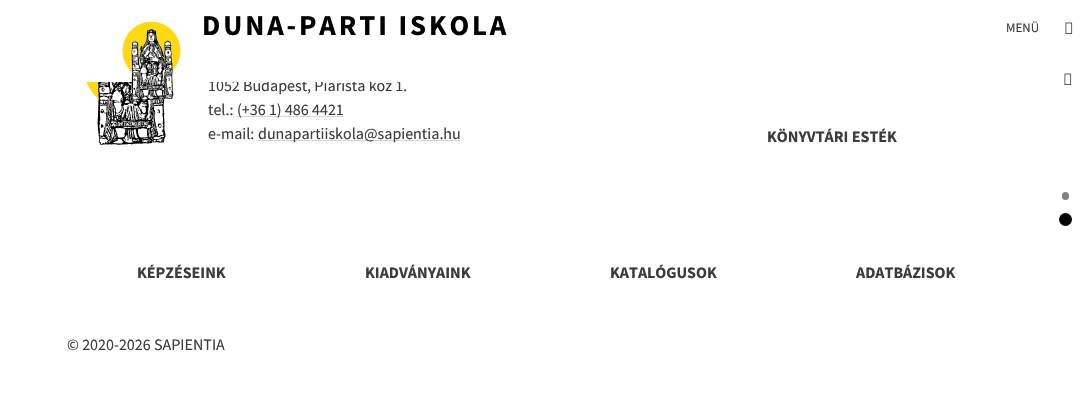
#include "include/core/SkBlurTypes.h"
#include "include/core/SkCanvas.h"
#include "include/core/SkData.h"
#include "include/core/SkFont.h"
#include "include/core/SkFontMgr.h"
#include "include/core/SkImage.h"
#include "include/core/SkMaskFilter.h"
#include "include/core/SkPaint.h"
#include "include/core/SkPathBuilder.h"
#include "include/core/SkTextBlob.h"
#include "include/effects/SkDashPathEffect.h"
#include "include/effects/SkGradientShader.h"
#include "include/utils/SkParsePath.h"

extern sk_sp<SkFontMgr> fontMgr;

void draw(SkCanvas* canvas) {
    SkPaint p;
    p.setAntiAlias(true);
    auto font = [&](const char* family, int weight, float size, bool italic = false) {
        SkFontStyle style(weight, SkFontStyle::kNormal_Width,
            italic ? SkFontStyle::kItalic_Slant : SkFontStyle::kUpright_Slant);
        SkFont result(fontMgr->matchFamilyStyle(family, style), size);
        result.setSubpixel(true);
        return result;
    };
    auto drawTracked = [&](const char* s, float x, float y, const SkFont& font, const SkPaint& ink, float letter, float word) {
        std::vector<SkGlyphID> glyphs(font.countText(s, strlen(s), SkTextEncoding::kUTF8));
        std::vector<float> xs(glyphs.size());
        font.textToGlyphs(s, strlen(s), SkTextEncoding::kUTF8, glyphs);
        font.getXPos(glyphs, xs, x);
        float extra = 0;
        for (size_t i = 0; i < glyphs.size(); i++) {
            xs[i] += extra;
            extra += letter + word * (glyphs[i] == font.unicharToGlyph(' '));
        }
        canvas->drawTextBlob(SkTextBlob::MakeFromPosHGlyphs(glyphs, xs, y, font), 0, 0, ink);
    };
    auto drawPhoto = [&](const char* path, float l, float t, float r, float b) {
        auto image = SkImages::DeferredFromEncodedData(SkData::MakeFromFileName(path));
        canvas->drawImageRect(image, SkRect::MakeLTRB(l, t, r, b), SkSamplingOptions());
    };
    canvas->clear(0xFFFFFFFF);
    auto font1 = font("Source Sans Pro", 400, 16);
    p.setColor(0xFF3C3C3C);
    canvas->drawString("1052 Budapest, Piarista köz 1.", 208, 91, font1, p);
    p.setColor(0xFFFFFFFF);
    canvas->drawRect(SkRect::MakeLTRB(209, 79, 401, 82), p);
    drawPhoto("media/3.png", 86, 82, 174, 145);
    drawPhoto("media/1.png", 122, 21, 181, 101);
    auto font2 = font("Source Sans Pro", 700, 28.75f);
    p.setColor(0xFF000000);
    drawTracked("DUNA-PARTI ISKOLA", 202, 35, font2, p, 2.9f, 0);
    auto font3 = font("Source Sans Pro", 400, 13);
    p.setColor(0xFF3C3C3C);
    canvas->drawString("MENÜ", 1006, 32, font3, p);
    drawPhoto("media/2.png", 1065, 22, 1073, 34);
    drawPhoto("media/2.png", 1064, 73, 1072, 85);
    canvas->drawString("tel.:", 208, 115, font1, p);
    p.setColor(0xFFD6D6D6);
    canvas->drawRect(SkRect::MakeLTRB(237, 116, 343, 117), p);
    p.setColor(0xFF3C3C3C);
    canvas->drawString("(+36 1) 486 4421", 237, 115, font1, p);
    canvas->drawString("e-mail:", 208, 139, font1, p);
    p.setColor(0xFFD6D6D6);
    canvas->drawRect(SkRect::MakeLTRB(258, 140, 460, 141), p);
    p.setColor(0xFF3C3C3C);
    canvas->drawString("dunapartiiskola@sapientia.hu", 258, 139, font1, p);
    auto font4 = font("Source Sans Pro", 700, 16);
    {
        const struct { const char* s; float x, y; } items[] = {
            {"KÖNYVTÁRI ESTÉK", 767, 142},
            {"KÉPZÉSEINK", 137, 278},
            {"KIADVÁNYAINK", 365, 278},
            {"KATALÓGUSOK", 610, 278},
            {"ADATBÁZISOK", 856, 278},
        };
        for (auto [s, x, y] : items) {
            canvas->drawString(s, x, y, font4, p);
        }
    }
    canvas->drawString("© 2020-2026 SAPIENTIA", 67, 350, font1, p);
    p.setColor(0xFF808080);
    canvas->drawRoundRect(SkRect::MakeLTRB(1062, 192, 1069, 200), 3.5f, 3.5f, p);
    p.setColor(0xFF000000);
    canvas->drawCircle(1065.5f, 219.5f, 6.5f, p);
}
